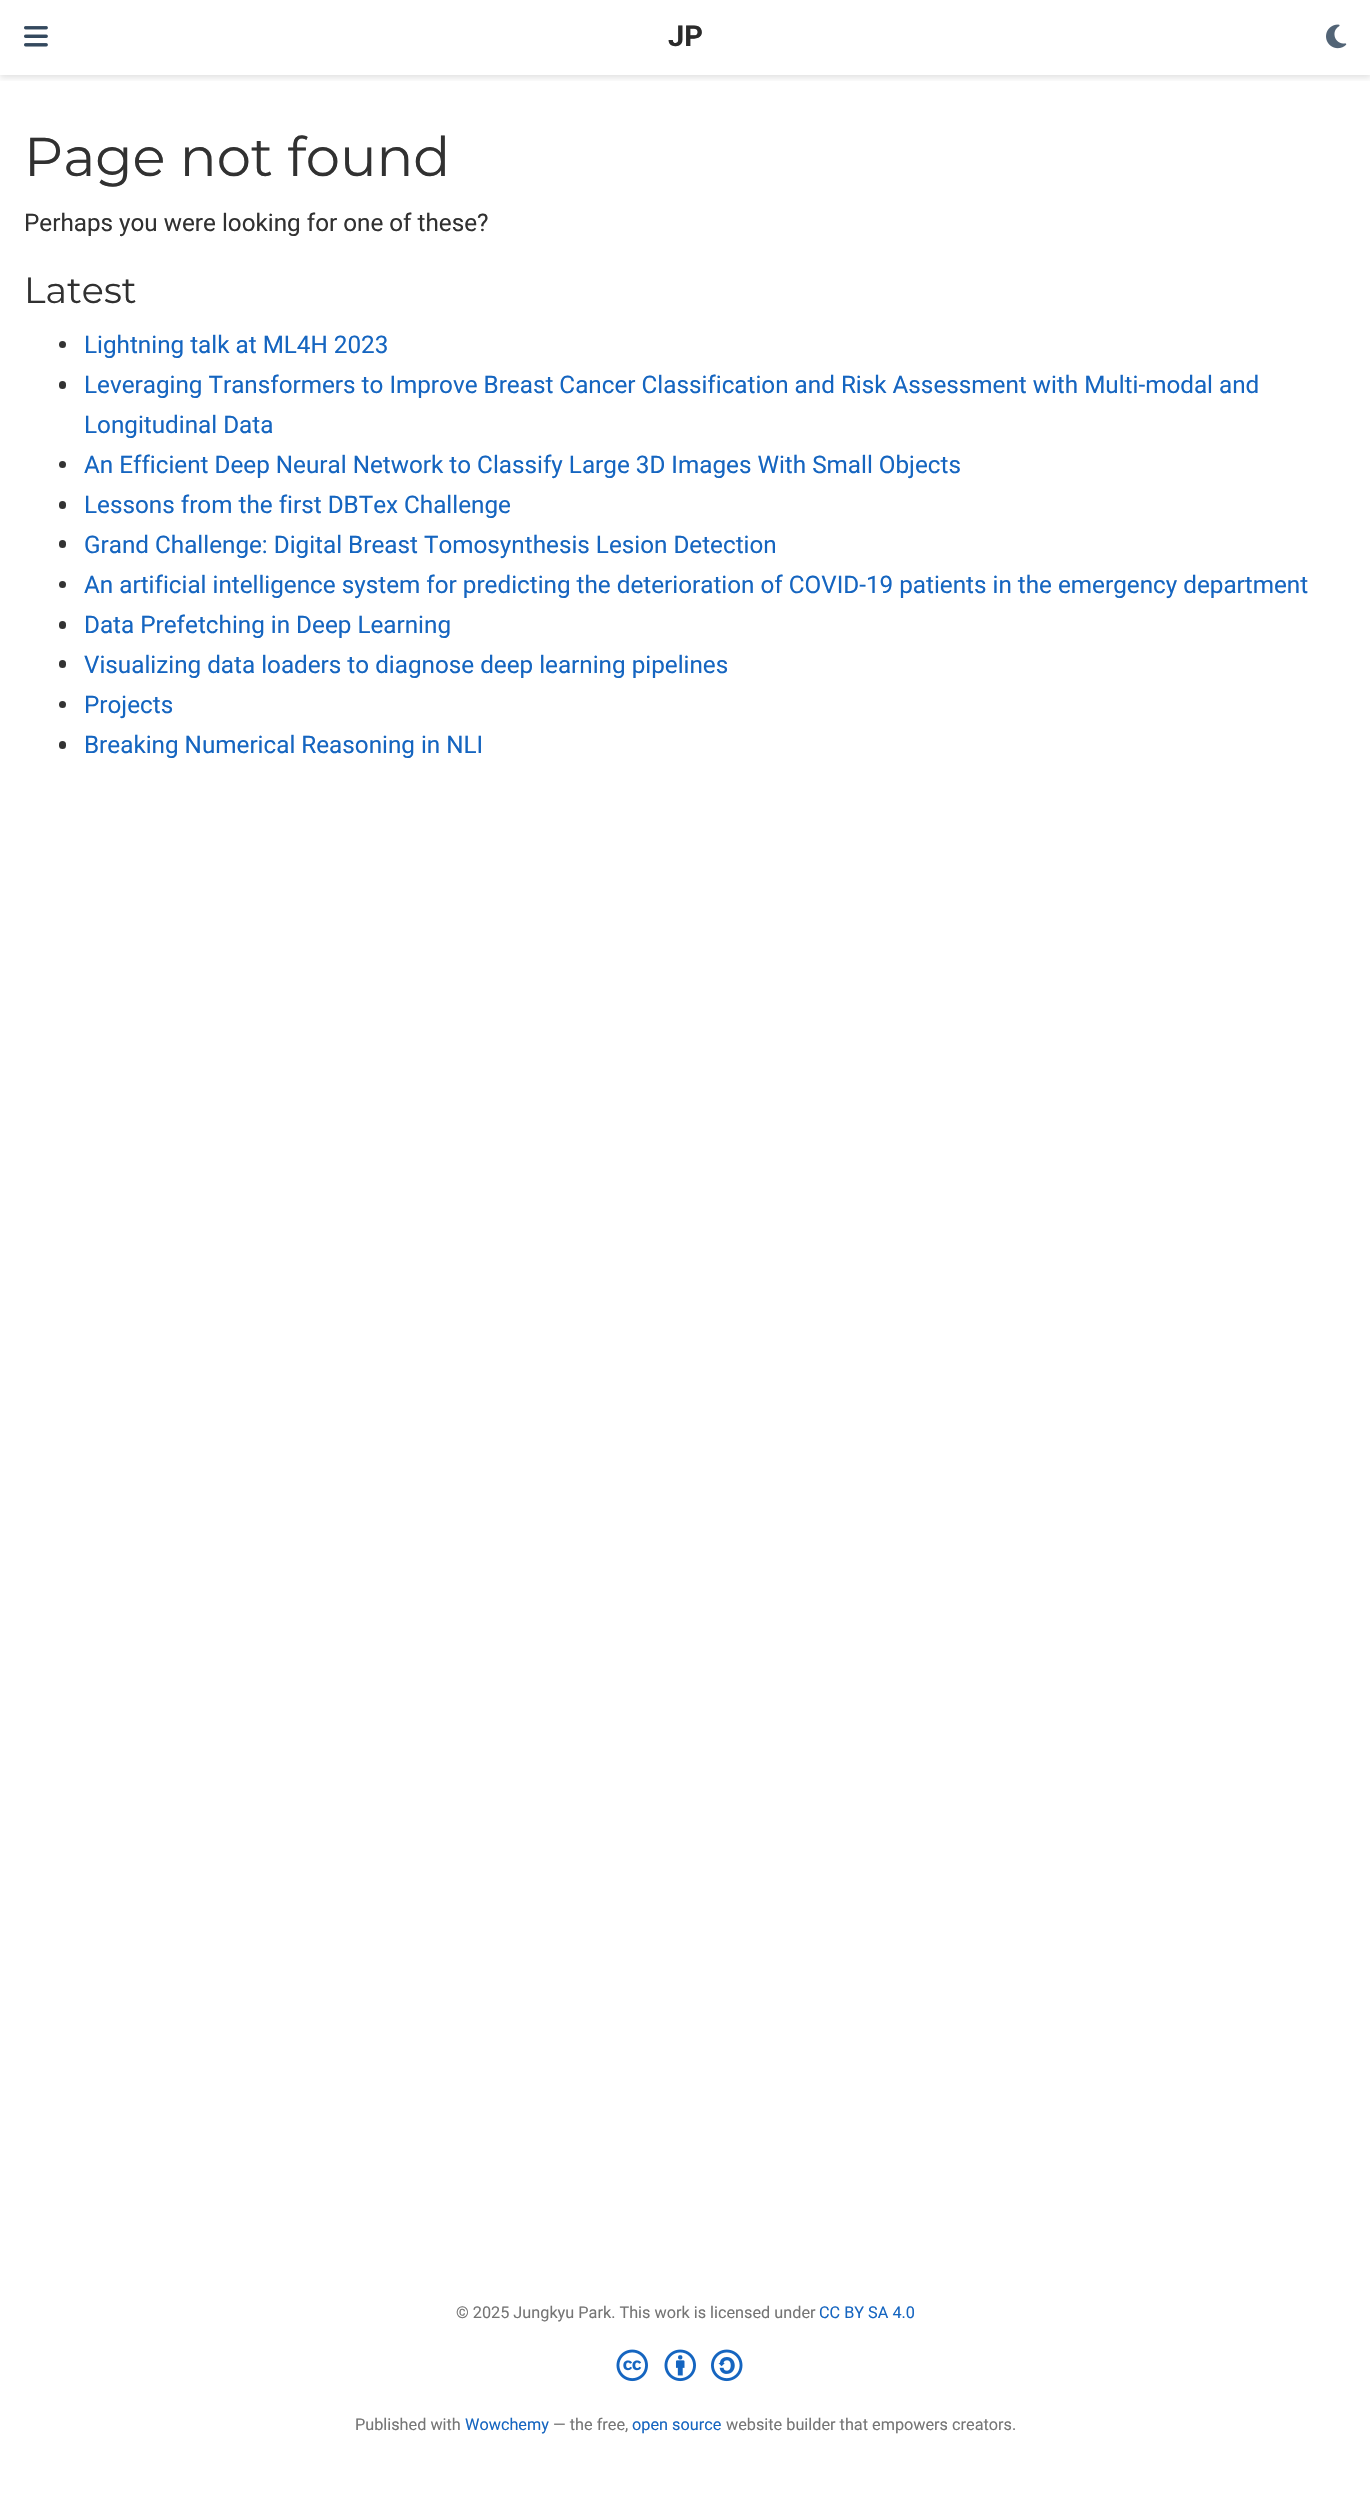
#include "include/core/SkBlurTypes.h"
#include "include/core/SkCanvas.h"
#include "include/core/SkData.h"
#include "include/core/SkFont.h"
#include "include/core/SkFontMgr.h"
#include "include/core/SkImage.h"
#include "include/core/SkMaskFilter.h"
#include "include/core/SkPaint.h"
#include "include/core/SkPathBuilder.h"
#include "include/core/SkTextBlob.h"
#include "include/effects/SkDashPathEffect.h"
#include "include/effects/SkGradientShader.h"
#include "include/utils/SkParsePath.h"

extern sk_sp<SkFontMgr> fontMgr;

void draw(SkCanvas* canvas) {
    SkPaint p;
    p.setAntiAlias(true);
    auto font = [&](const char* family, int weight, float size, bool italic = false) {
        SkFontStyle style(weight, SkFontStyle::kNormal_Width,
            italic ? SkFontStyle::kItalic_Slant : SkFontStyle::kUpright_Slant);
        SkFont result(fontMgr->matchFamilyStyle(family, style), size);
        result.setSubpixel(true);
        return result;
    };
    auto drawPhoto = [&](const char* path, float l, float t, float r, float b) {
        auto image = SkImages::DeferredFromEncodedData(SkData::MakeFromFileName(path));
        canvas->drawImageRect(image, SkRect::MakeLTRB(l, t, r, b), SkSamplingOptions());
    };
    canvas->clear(0xFFFFFFFF);
    canvas->save();
    canvas->clipRect(SkRect::MakeLTRB(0, 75, 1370, 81));
    p.setColor(0x1C000000);
    p.setMaskFilter(SkMaskFilter::MakeBlur(kNormal_SkBlurStyle, 3));
    canvas->drawRect(SkRect::MakeLTRB(0, 3, 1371, 78), p);
    p.setMaskFilter(nullptr);
    canvas->restore();
    drawPhoto("media/1.png", 24, 26, 48, 47);
    auto font1 = font("Roboto", 700, 29);
    p.setColor(0xFF2B2B2B);
    canvas->drawString("JP", 668, 46, font1, p);
    drawPhoto("media/2.png", 1326, 24, 1347, 49);
    auto font2 = font("Montserrat", 400, 54.5f);
    p.setColor(0xFF313131);
    canvas->drawString("Page not found", 24, 176, font2, p);
    auto font3 = font("Roboto", 400, 24.25f);
    canvas->drawString("Perhaps you were looking for one of these?", 24, 231, font3, p);
    auto font4 = font("Montserrat", 400, 36.5f);
    canvas->drawString("Latest", 24, 303, font4, p);
    p.setColor(0xFF333333);
    canvas->drawCircle(62.5f, 344.5f, 3.5f, p);
    p.setColor(0xFF1565C0);
    canvas->drawString("Lightning talk at ML4H 2023", 84, 353, font3, p);
    p.setColor(0xFF333333);
    canvas->drawRoundRect(SkRect::MakeLTRB(59, 381, 66, 389), 3.5f, 3.5f, p);
    p.setColor(0xFF1565C0);
    canvas->drawString("Leveraging Transformers to Improve Breast Cancer Classification and Risk Assessment with Multi-modal and", 84, 393, font3, p);
    canvas->drawString("Longitudinal Data", 84, 433, font3, p);
    p.setColor(0xFF333333);
    canvas->drawCircle(62.5f, 464.5f, 3.5f, p);
    p.setColor(0xFF1565C0);
    canvas->drawString("An Efficient Deep Neural Network to Classify Large 3D Images With Small Objects", 84, 473, font3, p);
    p.setColor(0xFF333333);
    canvas->drawRoundRect(SkRect::MakeLTRB(59, 501, 66, 509), 3.5f, 3.5f, p);
    p.setColor(0xFF1565C0);
    canvas->drawString("Lessons from the first DBTex Challenge", 84, 513, font3, p);
    p.setColor(0xFF333333);
    canvas->drawRoundRect(SkRect::MakeLTRB(59, 540, 66, 548), 3.5f, 3.5f, p);
    p.setColor(0xFF1565C0);
    canvas->drawString("Grand Challenge: Digital Breast Tomosynthesis Lesion Detection", 84, 553, font3, p);
    p.setColor(0xFF333333);
    canvas->drawCircle(62.5f, 584.5f, 3.5f, p);
    p.setColor(0xFF1565C0);
    canvas->drawString("An artificial intelligence system for predicting the deterioration of COVID-19 patients in the emergency department", 84, 593, font3, p);
    p.setColor(0xFF333333);
    canvas->drawRoundRect(SkRect::MakeLTRB(59, 621, 66, 629), 3.5f, 3.5f, p);
    p.setColor(0xFF1565C0);
    canvas->drawString("Data Prefetching in Deep Learning", 84, 633, font3, p);
    p.setColor(0xFF333333);
    canvas->drawRoundRect(SkRect::MakeLTRB(59, 660, 66, 668), 3.5f, 3.5f, p);
    p.setColor(0xFF1565C0);
    canvas->drawString("Visualizing data loaders to diagnose deep learning pipelines", 84, 673, font3, p);
    p.setColor(0xFF333333);
    canvas->drawCircle(62.5f, 704.5f, 3.5f, p);
    p.setColor(0xFF1565C0);
    canvas->drawString("Projects", 84, 713, font3, p);
    p.setColor(0xFF333333);
    canvas->drawRoundRect(SkRect::MakeLTRB(59, 741, 66, 749), 3.5f, 3.5f, p);
    p.setColor(0xFF1565C0);
    canvas->drawString("Breaking Numerical Reasoning in NLI", 84, 753, font3, p);
    auto font5 = font("Roboto", 400, 16.25f);
    p.setColor(0xFF757575);
    canvas->drawString("© 2025 Jungkyu Park. This work is licensed under", 456, 2318, font5, p);
    p.setColor(0xFF1565C0);
    canvas->drawString("CC BY SA 4.0", 819, 2318, font5, p);
    drawPhoto("media/3.png", 616, 2349, 648, 2382);
    drawPhoto("media/4.png", 664, 2349, 696, 2382);
    drawPhoto("media/5.png", 711, 2349, 743, 2382);
    p.setColor(0xFF757575);
    canvas->drawString("Published with", 355, 2430, font5, p);
    p.setColor(0xFF1565C0);
    canvas->drawString("Wowchemy", 465, 2430, font5, p);
    p.setColor(0xFF757575);
    canvas->drawString("— the free,", 553, 2430, font5, p);
    p.setColor(0xFF1565C0);
    canvas->drawString("open source", 632, 2430, font5, p);
    p.setColor(0xFF757575);
    canvas->drawString("website builder that empowers creators.", 726, 2430, font5, p);
}
